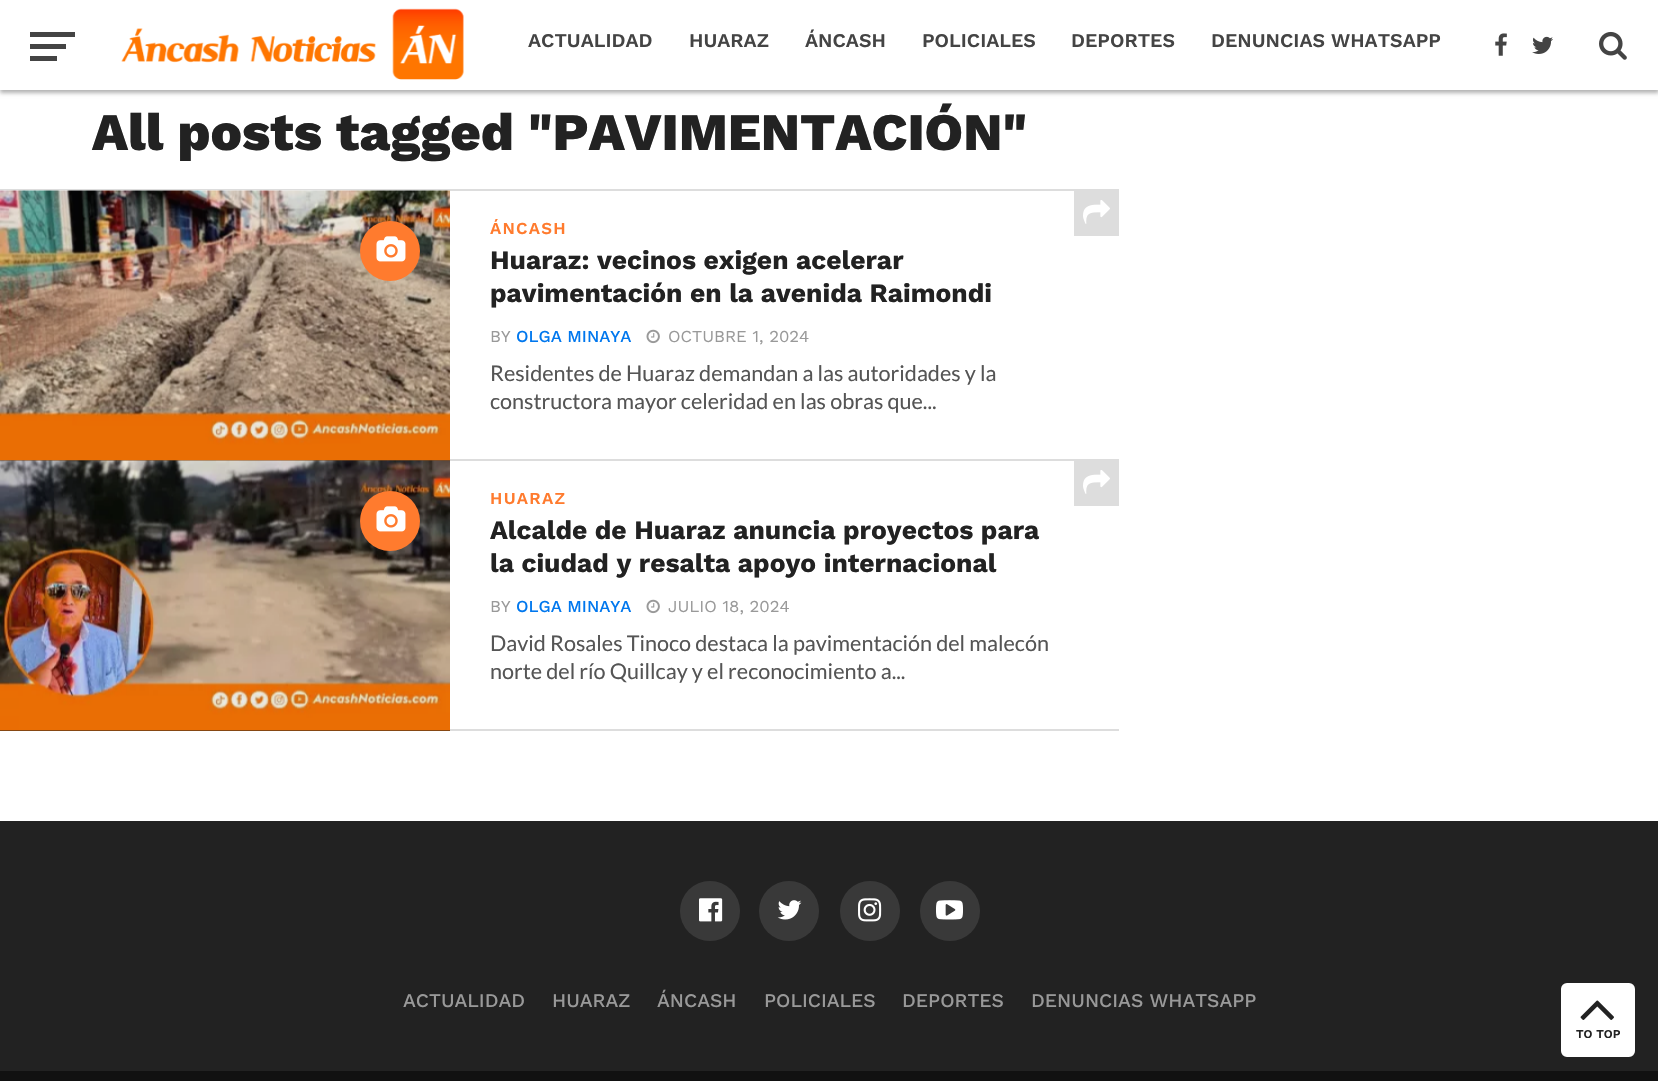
#include "include/core/SkBlurTypes.h"
#include "include/core/SkCanvas.h"
#include "include/core/SkData.h"
#include "include/core/SkFont.h"
#include "include/core/SkFontMgr.h"
#include "include/core/SkImage.h"
#include "include/core/SkMaskFilter.h"
#include "include/core/SkPaint.h"
#include "include/core/SkPathBuilder.h"
#include "include/core/SkTextBlob.h"
#include "include/effects/SkDashPathEffect.h"
#include "include/effects/SkGradientShader.h"
#include "include/utils/SkParsePath.h"

extern sk_sp<SkFontMgr> fontMgr;

void draw(SkCanvas* canvas) {
    SkPaint p;
    p.setAntiAlias(true);
    auto font = [&](const char* family, int weight, float size, bool italic = false) {
        SkFontStyle style(weight, SkFontStyle::kNormal_Width,
            italic ? SkFontStyle::kItalic_Slant : SkFontStyle::kUpright_Slant);
        SkFont result(fontMgr->matchFamilyStyle(family, style), size);
        result.setSubpixel(true);
        return result;
    };
    auto drawTracked = [&](const char* s, float x, float y, const SkFont& font, const SkPaint& ink, float letter, float word) {
        std::vector<SkGlyphID> glyphs(font.countText(s, strlen(s), SkTextEncoding::kUTF8));
        std::vector<float> xs(glyphs.size());
        font.textToGlyphs(s, strlen(s), SkTextEncoding::kUTF8, glyphs);
        font.getXPos(glyphs, xs, x);
        float extra = 0;
        for (size_t i = 0; i < glyphs.size(); i++) {
            xs[i] += extra;
            extra += letter + word * (glyphs[i] == font.unicharToGlyph(' '));
        }
        canvas->drawTextBlob(SkTextBlob::MakeFromPosHGlyphs(glyphs, xs, y, font), 0, 0, ink);
    };
    auto drawPhoto = [&](const char* path, float l, float t, float r, float b) {
        auto image = SkImages::DeferredFromEncodedData(SkData::MakeFromFileName(path));
        canvas->drawImageRect(image, SkRect::MakeLTRB(l, t, r, b), SkSamplingOptions());
    };
    canvas->clear(0xFFFFFFFF);
    p.setColor(0x4D000000);
    p.setMaskFilter(SkMaskFilter::MakeBlur(kNormal_SkBlurStyle, 2));
    canvas->drawRect(SkRect::MakeLTRB(0, 3, 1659, 93), p);
    p.setMaskFilter(nullptr);
    {
        const struct { float l, t, r, b; SkColor color; } items[] = {
            {0, 0, 1658, 90, 0xFFFFFFFF},
            {30, 32, 75, 37, 0xFF444444},
            {30, 44, 66, 49, 0xFF444444},
            {30, 56, 57, 61, 0xFF444444},
        };
        for (auto [l, t, r, b, color] : items) {
            p.setColor(color);
            canvas->drawRect(SkRect::MakeLTRB(l, t, r, b), p);
        }
    }
    drawPhoto("media/1.png", 121, 8, 464, 80);
    auto font1 = font("Work Sans", 600, 19.5f);
    {
        const struct { const char* s; float x, y; } items[] = {
            {"ACTUALIDAD", 528, 47},
            {"HUARAZ", 689, 47},
            {"ÁNCASH", 805, 47},
            {"POLICIALES", 922, 47},
            {"DEPORTES", 1071, 47},
            {"DENUNCIAS WHATSAPP", 1211, 47},
        };
        for (auto [s, x, y] : items) {
            canvas->drawString(s, x, y, font1, p);
        }
    }
    drawPhoto("media/2.png", 1495, 33, 1507, 56);
    drawPhoto("media/3.png", 1532, 36, 1553, 54);
    drawPhoto("media/4.png", 1599, 31, 1627, 60);
    auto font2 = font("Work Sans", 800, 52.75f);
    p.setColor(0xFF222222);
    canvas->drawString("All posts tagged \"PAVIMENTACIÓN\"", 92, 150, font2, p);
    p.setColor(0xFFDDDDDD);
    canvas->drawRect(SkRect::MakeLTRB(0, 189, 1119, 191), p);
    p.setColor(0xFF222222);
    canvas->drawRect(SkRect::MakeLTRB(0, 191, 450, 731), p);
    drawPhoto("media/5.png", 0, 190, 450, 461);
    p.setColor(0xFFFF7B2E);
    canvas->drawCircle(390, 251, 30, p);
    drawPhoto("media/6.png", 376, 236, 406, 262);
    p.setColor(0xFFDDDDDD);
    canvas->drawRect(SkRect::MakeLTRB(450, 459, 1119, 461), p);
    auto font3 = font("Work Sans", 600, 16.75f);
    p.setColor(0xFFFF7B2E);
    drawTracked("ÁNCASH", 490, 234, font3, p, 1.25f, 0);
    p.setColor(0xFFDDDDDD);
    canvas->drawRect(SkRect::MakeLTRB(1074, 191, 1119, 236), p);
    drawPhoto("media/7.png", 1083, 200, 1110, 224);
    auto font4 = font("Work Sans", 700, 26.4f);
    p.setColor(0xFF222222);
    canvas->drawString("Huaraz: vecinos exigen acelerar", 490, 269, font4, p);
    canvas->drawString("pavimentación en la avenida Raimondi", 490, 302, font4, p);
    auto font5 = font("Work Sans", 400, 16.75f);
    p.setColor(0xFF999999);
    canvas->drawString("BY", 490, 342, font5, p);
    auto font6 = font("Work Sans", 500, 16.75f);
    p.setColor(0xFF0077EE);
    canvas->drawString("OLGA MINAYA", 516, 342, font6, p);
    drawPhoto("media/8.png", 646, 329, 660, 344);
    p.setColor(0xFF999999);
    canvas->drawString("OCTUBRE 1, 2024", 668, 342, font5, p);
    auto font7 = font("Lato", 400, 21.6f);
    p.setColor(0xFF555555);
    canvas->drawString("Residentes de Huaraz demandan a las autoridades y la", 490, 381, font7, p);
    canvas->drawString("constructora mayor celeridad en las obras que...", 490, 409, font7, p);
    drawPhoto("media/9.png", 0, 460, 450, 731);
    p.setColor(0xFFFF7B2E);
    canvas->drawCircle(390, 521, 30, p);
    drawPhoto("media/6.png", 376, 506, 406, 532);
    p.setColor(0xFFDDDDDD);
    canvas->drawRect(SkRect::MakeLTRB(450, 729, 1119, 731), p);
    p.setColor(0xFFFF7B2E);
    drawTracked("HUARAZ", 490, 504, font3, p, 1.25f, 0);
    p.setColor(0xFFDDDDDD);
    canvas->drawRect(SkRect::MakeLTRB(1074, 461, 1119, 506), p);
    drawPhoto("media/7.png", 1083, 470, 1110, 494);
    p.setColor(0xFF222222);
    canvas->drawString("Alcalde de Huaraz anuncia proyectos para", 490, 539, font4, p);
    canvas->drawString("la ciudad y resalta apoyo internacional", 490, 572, font4, p);
    p.setColor(0xFF999999);
    canvas->drawString("BY", 490, 612, font5, p);
    p.setColor(0xFF0077EE);
    canvas->drawString("OLGA MINAYA", 516, 612, font6, p);
    drawPhoto("media/8.png", 646, 599, 660, 614);
    p.setColor(0xFF999999);
    canvas->drawString("JULIO 18, 2024", 668, 612, font5, p);
    p.setColor(0xFF555555);
    canvas->drawString("David Rosales Tinoco destaca la pavimentación del malecón", 490, 651, font7, p);
    canvas->drawString("norte del río Quillcay y el reconocimiento a...", 490, 679, font7, p);
    p.setColor(0xFF222222);
    canvas->drawRect(SkRect::MakeLTRB(0, 821, 1658, 1071), p);
    p.setColor(0xFF393939);
    canvas->drawCircle(710, 911, 30, p);
    drawPhoto("media/10.png", 699, 898, 723, 922);
    canvas->drawCircle(789, 911, 30, p);
    drawPhoto("media/11.png", 777, 900, 802, 920);
    canvas->drawCircle(870, 911, 30, p);
    drawPhoto("media/12.png", 858, 898, 882, 922);
    canvas->drawCircle(950, 911, 30, p);
    drawPhoto("media/13.png", 936, 900, 963, 920);
    auto font8 = font("Work Sans", 500, 19.25f);
    p.setColor(0xFF999999);
    {
        const struct { const char* s; float x, y; } items[] = {
            {"ACTUALIDAD", 403, 1007},
            {"HUARAZ", 552, 1007},
            {"ÁNCASH", 657, 1007},
            {"POLICIALES", 764, 1007},
            {"DEPORTES", 902, 1007},
            {"DENUNCIAS WHATSAPP", 1031, 1007},
        };
        for (auto [s, x, y] : items) {
            canvas->drawString(s, x, y, font8, p);
        }
    }
    p.setColor(0xFF111111);
    canvas->drawRect(SkRect::MakeLTRB(0, 1071, 1658, 1081), p);
    p.setColor(0xFFFFFFFF);
    canvas->drawRoundRect(SkRect::MakeLTRB(1560, 982, 1636, 1058), 7, 7, p);
    p.setStyle(SkPaint::kStroke_Style);
    p.setStrokeWidth(2);
    p.setColor(0xFF222222);
    canvas->drawRoundRect(SkRect::MakeLTRB(1560, 982, 1636, 1058), 7, 7, p);
    drawPhoto("media/14.png", 1580, 1000, 1614, 1020);
    auto font9 = font("Work Sans", 600, 12);
    p.setStyle(SkPaint::kFill_Style);
    canvas->drawString("TO TOP", 1576, 1038, font9, p);
}
